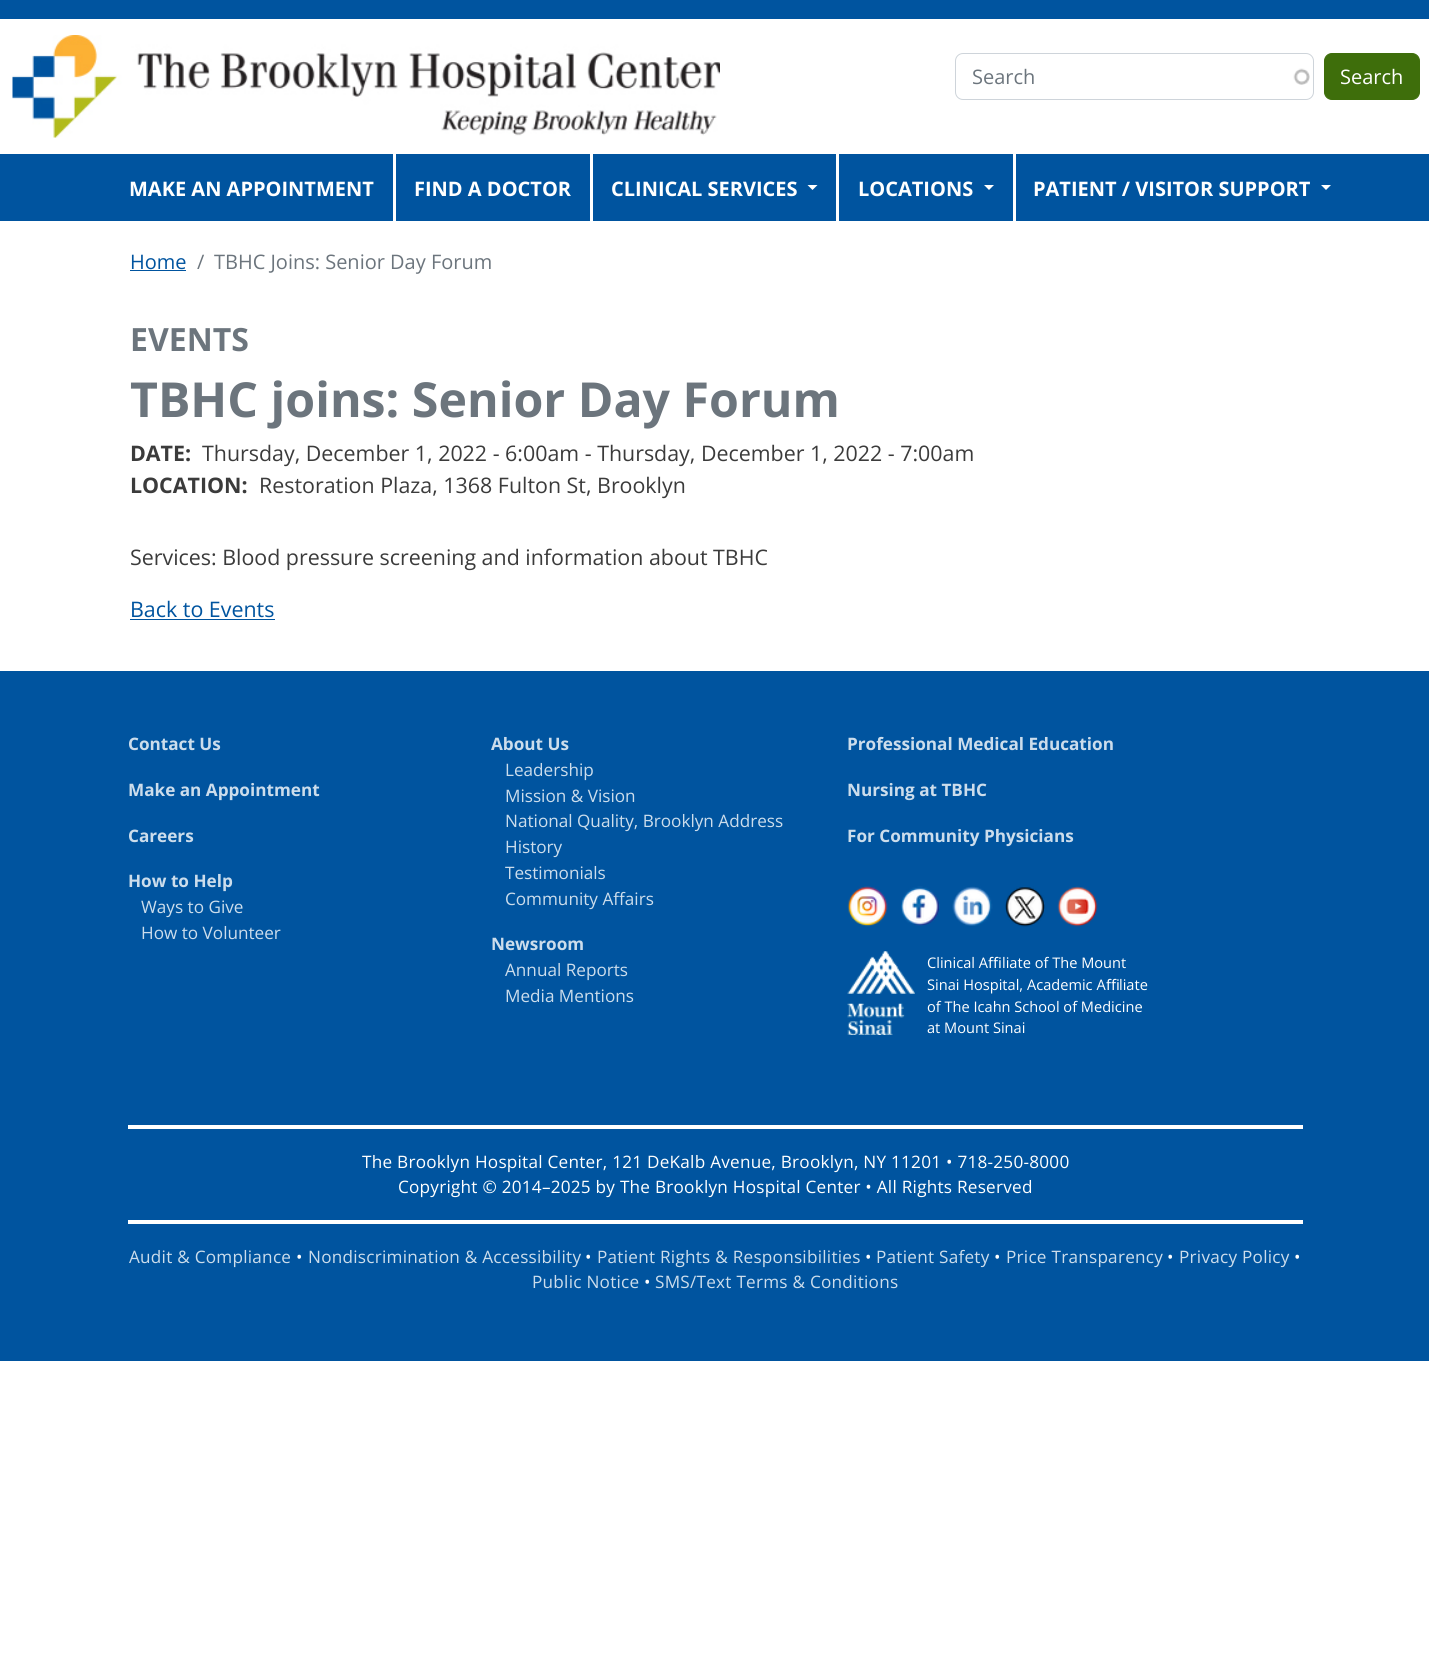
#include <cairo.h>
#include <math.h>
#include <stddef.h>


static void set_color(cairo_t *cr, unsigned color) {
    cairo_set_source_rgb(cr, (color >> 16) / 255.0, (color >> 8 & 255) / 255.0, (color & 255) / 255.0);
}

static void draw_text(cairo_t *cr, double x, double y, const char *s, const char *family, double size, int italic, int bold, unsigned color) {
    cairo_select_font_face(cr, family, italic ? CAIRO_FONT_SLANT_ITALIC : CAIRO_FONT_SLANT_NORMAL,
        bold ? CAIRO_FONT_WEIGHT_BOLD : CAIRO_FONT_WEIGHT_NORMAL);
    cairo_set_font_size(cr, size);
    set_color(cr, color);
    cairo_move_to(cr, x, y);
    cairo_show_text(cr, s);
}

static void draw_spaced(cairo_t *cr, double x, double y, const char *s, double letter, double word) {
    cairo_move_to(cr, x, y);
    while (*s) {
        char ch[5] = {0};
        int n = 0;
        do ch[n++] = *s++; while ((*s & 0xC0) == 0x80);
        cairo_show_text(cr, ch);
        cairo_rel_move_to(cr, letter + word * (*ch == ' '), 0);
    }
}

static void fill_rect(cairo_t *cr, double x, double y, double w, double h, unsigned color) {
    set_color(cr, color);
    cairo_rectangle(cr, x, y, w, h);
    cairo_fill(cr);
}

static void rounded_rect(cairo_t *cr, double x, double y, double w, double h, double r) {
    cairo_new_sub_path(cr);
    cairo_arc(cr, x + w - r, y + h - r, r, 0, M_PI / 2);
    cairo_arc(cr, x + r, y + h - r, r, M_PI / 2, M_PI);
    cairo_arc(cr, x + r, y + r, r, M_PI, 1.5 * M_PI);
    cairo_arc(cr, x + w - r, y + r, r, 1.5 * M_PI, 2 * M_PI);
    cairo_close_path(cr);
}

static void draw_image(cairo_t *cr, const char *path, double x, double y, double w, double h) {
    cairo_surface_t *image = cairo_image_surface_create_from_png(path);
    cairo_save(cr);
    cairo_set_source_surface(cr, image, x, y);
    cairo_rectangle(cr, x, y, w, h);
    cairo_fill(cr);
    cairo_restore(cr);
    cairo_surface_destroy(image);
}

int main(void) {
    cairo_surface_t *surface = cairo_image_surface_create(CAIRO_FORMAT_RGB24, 1429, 1655);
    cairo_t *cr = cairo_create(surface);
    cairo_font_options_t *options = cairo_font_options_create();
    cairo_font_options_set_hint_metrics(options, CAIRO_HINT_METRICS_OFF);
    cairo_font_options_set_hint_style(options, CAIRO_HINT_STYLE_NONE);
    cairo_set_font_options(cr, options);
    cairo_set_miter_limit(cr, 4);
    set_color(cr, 0xFFFFFF);
    cairo_paint(cr);
    fill_rect(cr, 0, 0, 1429, 19, 0x00549F);
    draw_image(cr, "assets/img1.png", 12, 35, 708, 103);
    draw_image(cr, "assets/img2.png", 1293, 68, 17, 17);
    rounded_rect(cr, 955.5, 53.5, 358, 46, 7.5);
    set_color(cr, 0xCED4DA);
    cairo_set_line_width(cr, 1);
    cairo_stroke(cr);
    draw_text(cr, 972, 84, "Search", "Open Sans", 20, 0, 0, 0x6C757D);
    set_color(cr, 0x3E6E0B);
    rounded_rect(cr, 1324.5, 53.5, 95, 46, 7.5);
    cairo_fill_preserve(cr);
    cairo_stroke(cr);
    draw_text(cr, 1340, 84, "Search", "Open Sans", 20, 0, 0, 0xFFFFFF);
    fill_rect(cr, 0, 154, 1429, 67, 0x00549F);
    fill_rect(cr, 393, 154, 3, 67, 0xFFFFFF);
    draw_text(cr, 129, 196, "MAKE AN APPOINTMENT", "Open Sans", 20, 0, 1, 0xFFFFFF);
    fill_rect(cr, 590, 154, 3, 67, 0xFFFFFF);
    draw_text(cr, 414, 196, "FIND A DOCTOR", "Open Sans", 20, 0, 1, 0xFFFFFF);
    fill_rect(cr, 836, 154, 3, 67, 0xFFFFFF);
    draw_text(cr, 611, 196, "CLINICAL SERVICES", "Open Sans", 20, 0, 1, 0xFFFFFF);
    cairo_new_path(cr);
    cairo_move_to(cr, 807.5, 185);
    cairo_line_to(cr, 817.5, 185);
    cairo_line_to(cr, 812.5, 190);
    cairo_close_path(cr);
    cairo_fill(cr);
    fill_rect(cr, 1013, 154, 3, 67, 0xFFFFFF);
    draw_text(cr, 858, 196, "LOCATIONS", "Open Sans", 20, 0, 1, 0xFFFFFF);
    cairo_new_path(cr);
    cairo_move_to(cr, 984, 185);
    cairo_line_to(cr, 994, 185);
    cairo_line_to(cr, 989, 190);
    cairo_close_path(cr);
    cairo_fill(cr);
    draw_text(cr, 1033, 196, "PATIENT / VISITOR SUPPORT", "Open Sans", 20, 0, 1, 0xFFFFFF);
    cairo_new_path(cr);
    cairo_move_to(cr, 1321, 185);
    cairo_line_to(cr, 1331, 185);
    cairo_line_to(cr, 1326, 190);
    cairo_close_path(cr);
    cairo_fill(cr);
    draw_text(cr, 130, 269, "Home", "Open Sans", 20, 0, 0, 0x00549F);
    fill_rect(cr, 130, 270, 56, 1, 0x00549F);
    draw_text(cr, 197, 269, "/", "Open Sans", 20, 0, 0, 0x6C757D);
    draw_text(cr, 214, 269, "TBHC Joins: Senior Day Forum", "Open Sans", 20, 0, 0, 0x6C757D);
    draw_text(cr, 130, 351, "EVENTS", "Open Sans", 32, 0, 1, 0x6C757D);
    draw_text(cr, 130, 417, "TBHC joins: Senior Day Forum", "Open Sans", 48.25, 0, 1, 0x6C757D);
    draw_text(cr, 130, 461, "DATE:", "Open Sans", 21.4, 0, 1, 0x3B3B3B);
    draw_text(cr, 202, 461, "Thursday, December 1, 2022 - 6:00am - Thursday, December 1, 2022 - 7:00am", "Open Sans", 21.4, 0, 0, 0x3B3B3B);
    draw_text(cr, 130, 493, "LOCATION:", "Open Sans", 21.4, 0, 1, 0x3B3B3B);
    draw_text(cr, 259, 493, "Restoration Plaza, 1368 Fulton St, Brooklyn", "Open Sans", 21.4, 0, 0, 0x3B3B3B);
    draw_text(cr, 130, 565, "Services: Blood pressure screening and information about TBHC", "Open Sans", 21.4, 0, 0, 0x3B3B3B);
    draw_text(cr, 130, 617, "Back to Events", "Open Sans", 21.4, 0, 0, 0x00549F);
    fill_rect(cr, 130, 619, 145, 1, 0x00549F);
    fill_rect(cr, 0, 671, 1429, 690, 0x00549F);
    draw_text(cr, 128, 750, "Contact Us", "Open Sans", 17.15, 0, 1, 0xCCDDEC);
    draw_text(cr, 128, 796, "Make an Appointment", "Open Sans", 17.15, 0, 1, 0xCCDDEC);
    draw_text(cr, 128, 842, "Careers", "Open Sans", 17.15, 0, 1, 0xCCDDEC);
    draw_text(cr, 128, 887, "How to Help", "Open Sans", 17.15, 0, 1, 0xCCDDEC);
    draw_text(cr, 141, 913, "Ways to Give", "Open Sans", 17.15, 0, 0, 0xCCDDEC);
    draw_text(cr, 141, 939, "How to Volunteer", "Open Sans", 17.15, 0, 0, 0xCCDDEC);
    draw_text(cr, 491, 750, "About Us", "Open Sans", 17.15, 0, 1, 0xCCDDEC);
    draw_text(cr, 505, 776, "Leadership", "Open Sans", 17.15, 0, 0, 0xCCDDEC);
    draw_text(cr, 505, 802, "Mission & Vision", "Open Sans", 17.15, 0, 0, 0xCCDDEC);
    draw_text(cr, 505, 827, "National Quality, Brooklyn Address", "Open Sans", 17.15, 0, 0, 0xCCDDEC);
    draw_text(cr, 505, 853, "History", "Open Sans", 17.15, 0, 0, 0xCCDDEC);
    draw_text(cr, 505, 879, "Testimonials", "Open Sans", 17.15, 0, 0, 0xCCDDEC);
    draw_text(cr, 505, 905, "Community Affairs", "Open Sans", 17.15, 0, 0, 0xCCDDEC);
    draw_text(cr, 491, 950, "Newsroom", "Open Sans", 17.15, 0, 1, 0xCCDDEC);
    draw_text(cr, 505, 976, "Annual Reports", "Open Sans", 17.15, 0, 0, 0xCCDDEC);
    draw_text(cr, 505, 1002, "Media Mentions", "Open Sans", 17.15, 0, 0, 0xCCDDEC);
    draw_text(cr, 847, 750, "Professional Medical Education", "Open Sans", 17.15, 0, 1, 0xCCDDEC);
    draw_text(cr, 847, 796, "Nursing at TBHC", "Open Sans", 17.15, 0, 1, 0xCCDDEC);
    draw_text(cr, 847, 842, "For Community Physicians", "Open Sans", 17.15, 0, 1, 0xCCDDEC);
    draw_image(cr, "assets/img3.png", 847, 886, 41, 41);
    draw_image(cr, "assets/img4.png", 901, 886, 39, 40);
    draw_image(cr, "assets/img5.png", 952, 886, 41, 40);
    draw_image(cr, "assets/img6.png", 1005, 886, 40, 41);
    draw_image(cr, "assets/img7.png", 1057, 886, 41, 41);
    draw_image(cr, "assets/img8.png", 847, 951, 68, 84);
    draw_text(cr, 927, 968, "Clinical A", "Open Sans", 14.6, 0, 0, 0xFFFFFF);
    draw_text(cr, 988, 968, "ﬃ", "Noto Sans", 14.6, 0, 0, 0xFFFFFF);
    draw_text(cr, 1002, 968, "liate of The Mount", "Open Sans", 14.6, 0, 0, 0xFFFFFF);
    draw_text(cr, 927, 990, "Sinai Hospital, Academic A", "Open Sans", 14.6, 0, 0, 0xFFFFFF);
    draw_text(cr, 1106, 990, "ﬃ", "Noto Sans", 14.6, 0, 0, 0xFFFFFF);
    draw_text(cr, 1119, 990, "liate", "Open Sans", 14.6, 0, 0, 0xFFFFFF);
    draw_text(cr, 927, 1012, "of The Icahn School of Medicine", "Open Sans", 14.6, 0, 0, 0xFFFFFF);
    draw_text(cr, 927, 1033, "at Mount Sinai", "Open Sans", 14.6, 0, 0, 0xFFFFFF);
    fill_rect(cr, 128, 1125, 1175, 4, 0xFFFFFF);
    cairo_set_font_size(cr, 17.15);
    draw_spaced(cr, 362, 1168, "The Brooklyn Hospital Center, 121 DeKalb Avenue, Brooklyn, NY 11201 • 718-250-8000", 0.25, 0);
    draw_spaced(cr, 398, 1193, "Copyright © 2014–2025 by The Brooklyn Hospital Center • All Rights Reserved", 0.25, 0);
    fill_rect(cr, 128, 1220, 1175, 4, 0xFFFFFF);
    set_color(cr, 0xCCDDEC);
    draw_spaced(cr, 129, 1263, "Audit & Compliance", 0.25, 0);
    set_color(cr, 0xFFFFFF);
    draw_spaced(cr, 296, 1263, "•", 0.25, 0);
    set_color(cr, 0xCCDDEC);
    draw_spaced(cr, 308, 1263, "Nondiscrimination & Accessibility", 0.25, 0);
    set_color(cr, 0xFFFFFF);
    draw_spaced(cr, 585, 1263, "•", 0.25, 0);
    set_color(cr, 0xCCDDEC);
    draw_spaced(cr, 597, 1263, "Patient Rights & Responsibilities", 0.25, 0);
    set_color(cr, 0xFFFFFF);
    draw_spaced(cr, 865, 1263, "•", 0.25, 0);
    set_color(cr, 0xCCDDEC);
    draw_spaced(cr, 876, 1263, "Patient Safety", 0.25, 0);
    set_color(cr, 0xFFFFFF);
    draw_spaced(cr, 994, 1263, "•", 0.25, 0);
    set_color(cr, 0xCCDDEC);
    draw_spaced(cr, 1006, 1263, "Price Transparency", 0.25, 0);
    set_color(cr, 0xFFFFFF);
    draw_spaced(cr, 1167, 1263, "•", 0.25, 0);
    set_color(cr, 0xCCDDEC);
    draw_spaced(cr, 1179, 1263, "Privacy Policy", 0.25, 0);
    set_color(cr, 0xFFFFFF);
    draw_spaced(cr, 1294, 1263, "•", 0.25, 0);
    set_color(cr, 0xCCDDEC);
    draw_spaced(cr, 532, 1288, "Public Notice", 0.25, 0);
    set_color(cr, 0xFFFFFF);
    draw_spaced(cr, 644, 1288, "•", 0.25, 0);
    set_color(cr, 0xCCDDEC);
    draw_spaced(cr, 655, 1288, "SMS/Text Terms & Conditions", 0.25, 0);
    cairo_surface_write_to_png(surface, "output.png");
    cairo_font_options_destroy(options);
    cairo_destroy(cr);
    cairo_surface_destroy(surface);
    return 0;
}
